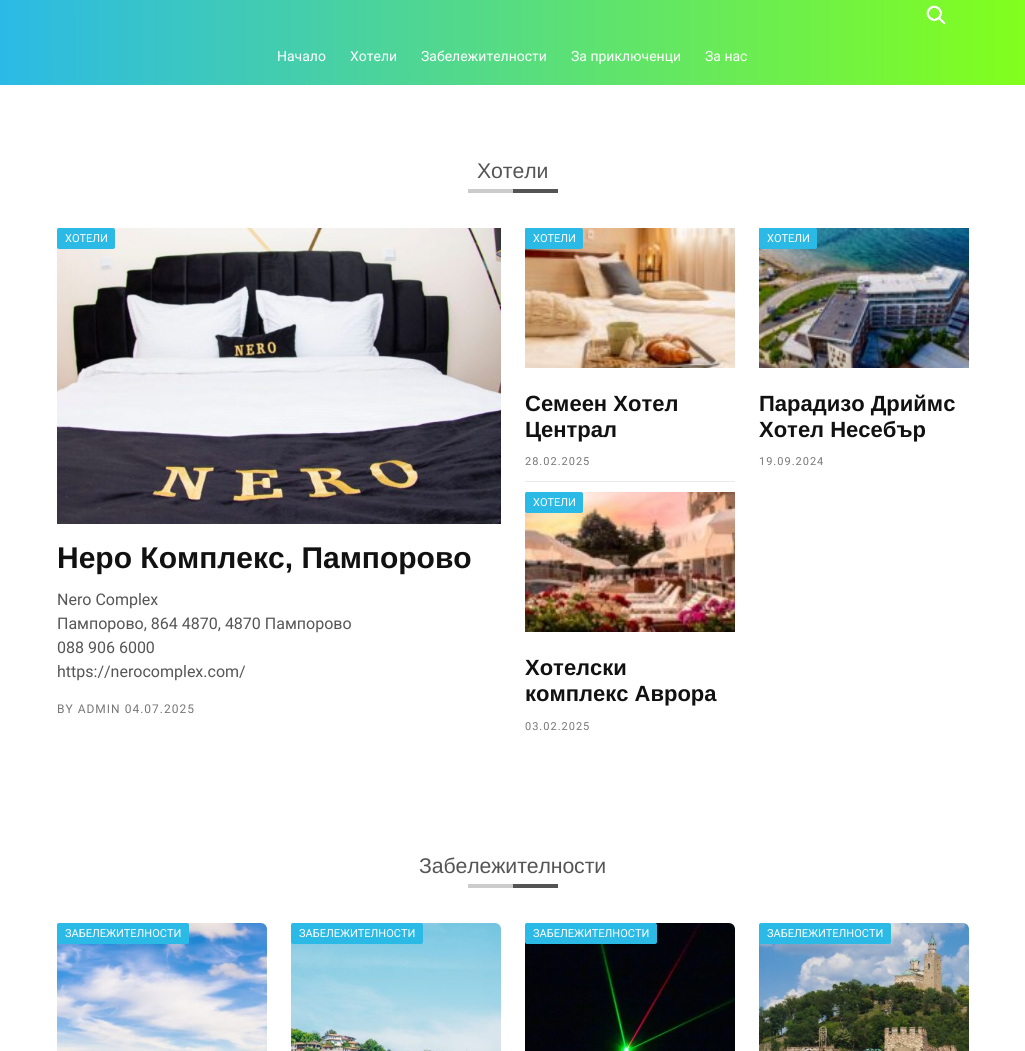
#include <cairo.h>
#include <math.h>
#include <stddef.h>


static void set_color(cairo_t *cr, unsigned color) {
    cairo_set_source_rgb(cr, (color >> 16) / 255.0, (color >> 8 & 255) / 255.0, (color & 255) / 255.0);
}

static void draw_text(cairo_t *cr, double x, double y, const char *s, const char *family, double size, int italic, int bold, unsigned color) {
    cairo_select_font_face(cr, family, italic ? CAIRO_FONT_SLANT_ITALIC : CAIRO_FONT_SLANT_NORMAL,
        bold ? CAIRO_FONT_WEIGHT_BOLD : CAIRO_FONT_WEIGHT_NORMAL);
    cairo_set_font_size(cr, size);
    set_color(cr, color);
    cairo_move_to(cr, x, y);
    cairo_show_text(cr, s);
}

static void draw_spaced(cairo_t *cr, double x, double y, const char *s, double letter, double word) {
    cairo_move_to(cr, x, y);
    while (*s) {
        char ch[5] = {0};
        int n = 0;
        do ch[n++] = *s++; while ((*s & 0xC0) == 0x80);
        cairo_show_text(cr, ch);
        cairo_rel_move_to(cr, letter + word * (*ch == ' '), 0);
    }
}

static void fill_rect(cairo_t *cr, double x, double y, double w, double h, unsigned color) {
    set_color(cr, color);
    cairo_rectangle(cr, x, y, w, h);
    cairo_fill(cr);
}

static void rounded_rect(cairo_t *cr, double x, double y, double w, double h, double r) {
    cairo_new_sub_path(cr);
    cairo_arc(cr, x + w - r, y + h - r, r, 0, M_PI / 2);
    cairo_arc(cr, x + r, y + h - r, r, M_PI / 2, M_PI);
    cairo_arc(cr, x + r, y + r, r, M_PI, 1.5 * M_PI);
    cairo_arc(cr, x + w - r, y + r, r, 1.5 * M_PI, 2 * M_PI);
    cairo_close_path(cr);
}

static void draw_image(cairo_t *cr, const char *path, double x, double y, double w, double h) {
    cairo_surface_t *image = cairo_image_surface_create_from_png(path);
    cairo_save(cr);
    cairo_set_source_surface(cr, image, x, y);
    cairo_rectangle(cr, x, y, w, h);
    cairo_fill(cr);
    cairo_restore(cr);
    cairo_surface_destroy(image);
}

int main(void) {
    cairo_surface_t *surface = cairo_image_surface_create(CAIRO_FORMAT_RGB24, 1025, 1051);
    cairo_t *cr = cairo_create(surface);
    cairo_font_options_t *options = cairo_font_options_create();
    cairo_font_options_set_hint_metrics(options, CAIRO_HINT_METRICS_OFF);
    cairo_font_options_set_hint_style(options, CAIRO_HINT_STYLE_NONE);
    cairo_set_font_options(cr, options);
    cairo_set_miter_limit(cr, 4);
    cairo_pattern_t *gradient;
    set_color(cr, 0xFFFFFF);
    cairo_paint(cr);
    gradient = cairo_pattern_create_linear(0, 43, 1025, 42);
    cairo_pattern_add_color_stop_rgba(gradient, 0, 0.169, 0.729, 0.902, 1);
    cairo_pattern_add_color_stop_rgba(gradient, 1, 0.51, 1, 0.11, 1);
    cairo_set_source(cr, gradient);
    cairo_pattern_destroy(gradient);
    cairo_rectangle(cr, 0, 0, 1025, 85);
    cairo_fill(cr);
    draw_image(cr, "assets/img1.png", 926, 5, 20, 20);
    draw_text(cr, 277, 61, "Начало", "Roboto", 14, 0, 0, 0xFFFFFF);
    draw_text(cr, 350, 61, "Хотели", "Roboto", 14, 0, 0, 0xFFFFFF);
    draw_text(cr, 421, 61, "Забележителности", "Roboto", 14, 0, 0, 0xFFFFFF);
    draw_text(cr, 571, 61, "За приключенци", "Roboto", 14, 0, 0, 0xFFFFFF);
    draw_text(cr, 705, 61, "За нас", "Roboto", 14, 0, 0, 0xFFFFFF);
    cairo_select_font_face(cr, "Liberation Sans", CAIRO_FONT_SLANT_NORMAL, CAIRO_FONT_WEIGHT_NORMAL);
    cairo_set_font_size(cr, 21.25);
    set_color(cr, 0x555555);
    draw_spaced(cr, 477, 178, "Хотели", -0.1, 0);
    fill_rect(cr, 468, 189, 45, 4, 0xCCCCCC);
    fill_rect(cr, 513, 189, 45, 4, 0x545454);
    draw_image(cr, "assets/img2.png", 57, 228, 444, 296);
    set_color(cr, 0x2BBAE6);
    rounded_rect(cr, 57, 228, 58, 21, 2);
    cairo_fill(cr);
    draw_text(cr, 65, 242, "ХОТЕЛИ", "Roboto", 11, 0, 0, 0xFFFFFF);
    draw_text(cr, 57, 568, "Неро Комплекс, Пампорово", "Liberation Sans", 30, 0, 1, 0x111111);
    draw_text(cr, 57, 605, "Nero Complex", "Roboto", 16, 0, 0, 0x555555);
    draw_text(cr, 57, 629, "Пампорово, 864 4870, 4870 Пампорово", "Roboto", 16, 0, 0, 0x555555);
    draw_text(cr, 57, 653, "088 906 6000", "Roboto", 16, 0, 0, 0x555555);
    draw_text(cr, 57, 677, "https://nerocomplex.com/", "Roboto", 16, 0, 0, 0x555555);
    cairo_set_font_size(cr, 12);
    set_color(cr, 0x777777);
    draw_spaced(cr, 57, 713, "BY ADMIN 04.07.2025", 1, 0);
    fill_rect(cr, 525, 481, 210, 1, 0xEAEAEA);
    draw_image(cr, "assets/img3.png", 525, 228, 210, 140);
    set_color(cr, 0x2BBAE6);
    rounded_rect(cr, 525, 228, 58, 21, 2);
    cairo_fill(cr);
    draw_text(cr, 533, 242, "ХОТЕЛИ", "Roboto", 11, 0, 0, 0xFFFFFF);
    draw_text(cr, 525, 411, "Семеен Хотел", "Liberation Sans", 22, 0, 1, 0x111111);
    draw_text(cr, 525, 437, "Централ", "Liberation Sans", 22, 0, 1, 0x111111);
    cairo_select_font_face(cr, "Roboto", CAIRO_FONT_SLANT_NORMAL, CAIRO_FONT_WEIGHT_NORMAL);
    cairo_set_font_size(cr, 11);
    set_color(cr, 0x777777);
    draw_spaced(cr, 525, 465, "28.02.2025", 1, 0);
    draw_image(cr, "assets/img4.png", 525, 492, 210, 140);
    set_color(cr, 0x2BBAE6);
    rounded_rect(cr, 525, 492, 58, 21, 2);
    cairo_fill(cr);
    draw_text(cr, 533, 506, "ХОТЕЛИ", "Roboto", 11, 0, 0, 0xFFFFFF);
    draw_text(cr, 525, 675, "Хотелски", "Liberation Sans", 22, 0, 1, 0x111111);
    draw_text(cr, 525, 701, "комплекс Аврора", "Liberation Sans", 22, 0, 1, 0x111111);
    cairo_select_font_face(cr, "Roboto", CAIRO_FONT_SLANT_NORMAL, CAIRO_FONT_WEIGHT_NORMAL);
    cairo_set_font_size(cr, 11);
    set_color(cr, 0x777777);
    draw_spaced(cr, 525, 730, "03.02.2025", 1, 0);
    draw_image(cr, "assets/img5.png", 759, 228, 210, 140);
    set_color(cr, 0x2BBAE6);
    rounded_rect(cr, 759, 228, 58, 21, 2);
    cairo_fill(cr);
    draw_text(cr, 767, 242, "ХОТЕЛИ", "Roboto", 11, 0, 0, 0xFFFFFF);
    draw_text(cr, 759, 411, "Парадизо Дриймс", "Liberation Sans", 22, 0, 1, 0x111111);
    draw_text(cr, 759, 437, "Хотел Несебър", "Liberation Sans", 22, 0, 1, 0x111111);
    cairo_select_font_face(cr, "Roboto", CAIRO_FONT_SLANT_NORMAL, CAIRO_FONT_WEIGHT_NORMAL);
    cairo_set_font_size(cr, 11);
    set_color(cr, 0x777777);
    draw_spaced(cr, 759, 465, "19.09.2024", 1, 0);
    cairo_select_font_face(cr, "Liberation Sans", CAIRO_FONT_SLANT_NORMAL, CAIRO_FONT_WEIGHT_NORMAL);
    cairo_set_font_size(cr, 21.25);
    set_color(cr, 0x555555);
    draw_spaced(cr, 419, 873, "Забележителности", -0.1, 0);
    fill_rect(cr, 468, 884, 45, 4, 0xCCCCCC);
    fill_rect(cr, 513, 884, 45, 4, 0x545454);
    draw_image(cr, "assets/img6.png", 57, 923, 210, 128);
    set_color(cr, 0x2BBAE6);
    rounded_rect(cr, 57, 923, 132, 21, 2);
    cairo_fill(cr);
    draw_text(cr, 65, 937, "ЗАБЕЛЕЖИТЕЛНОСТИ", "Roboto", 11, 0, 0, 0xFFFFFF);
    draw_image(cr, "assets/img7.png", 291, 923, 210, 128);
    set_color(cr, 0x2BBAE6);
    rounded_rect(cr, 291, 923, 132, 21, 2);
    cairo_fill(cr);
    draw_text(cr, 299, 937, "ЗАБЕЛЕЖИТЕЛНОСТИ", "Roboto", 11, 0, 0, 0xFFFFFF);
    draw_image(cr, "assets/img8.png", 525, 923, 210, 128);
    set_color(cr, 0x2BBAE6);
    rounded_rect(cr, 525, 923, 132, 21, 2);
    cairo_fill(cr);
    draw_text(cr, 533, 937, "ЗАБЕЛЕЖИТЕЛНОСТИ", "Roboto", 11, 0, 0, 0xFFFFFF);
    draw_image(cr, "assets/img9.png", 759, 923, 210, 128);
    set_color(cr, 0x2BBAE6);
    rounded_rect(cr, 759, 923, 132, 21, 2);
    cairo_fill(cr);
    draw_text(cr, 767, 937, "ЗАБЕЛЕЖИТЕЛНОСТИ", "Roboto", 11, 0, 0, 0xFFFFFF);
    cairo_surface_write_to_png(surface, "output.png");
    cairo_font_options_destroy(options);
    cairo_destroy(cr);
    cairo_surface_destroy(surface);
    return 0;
}
